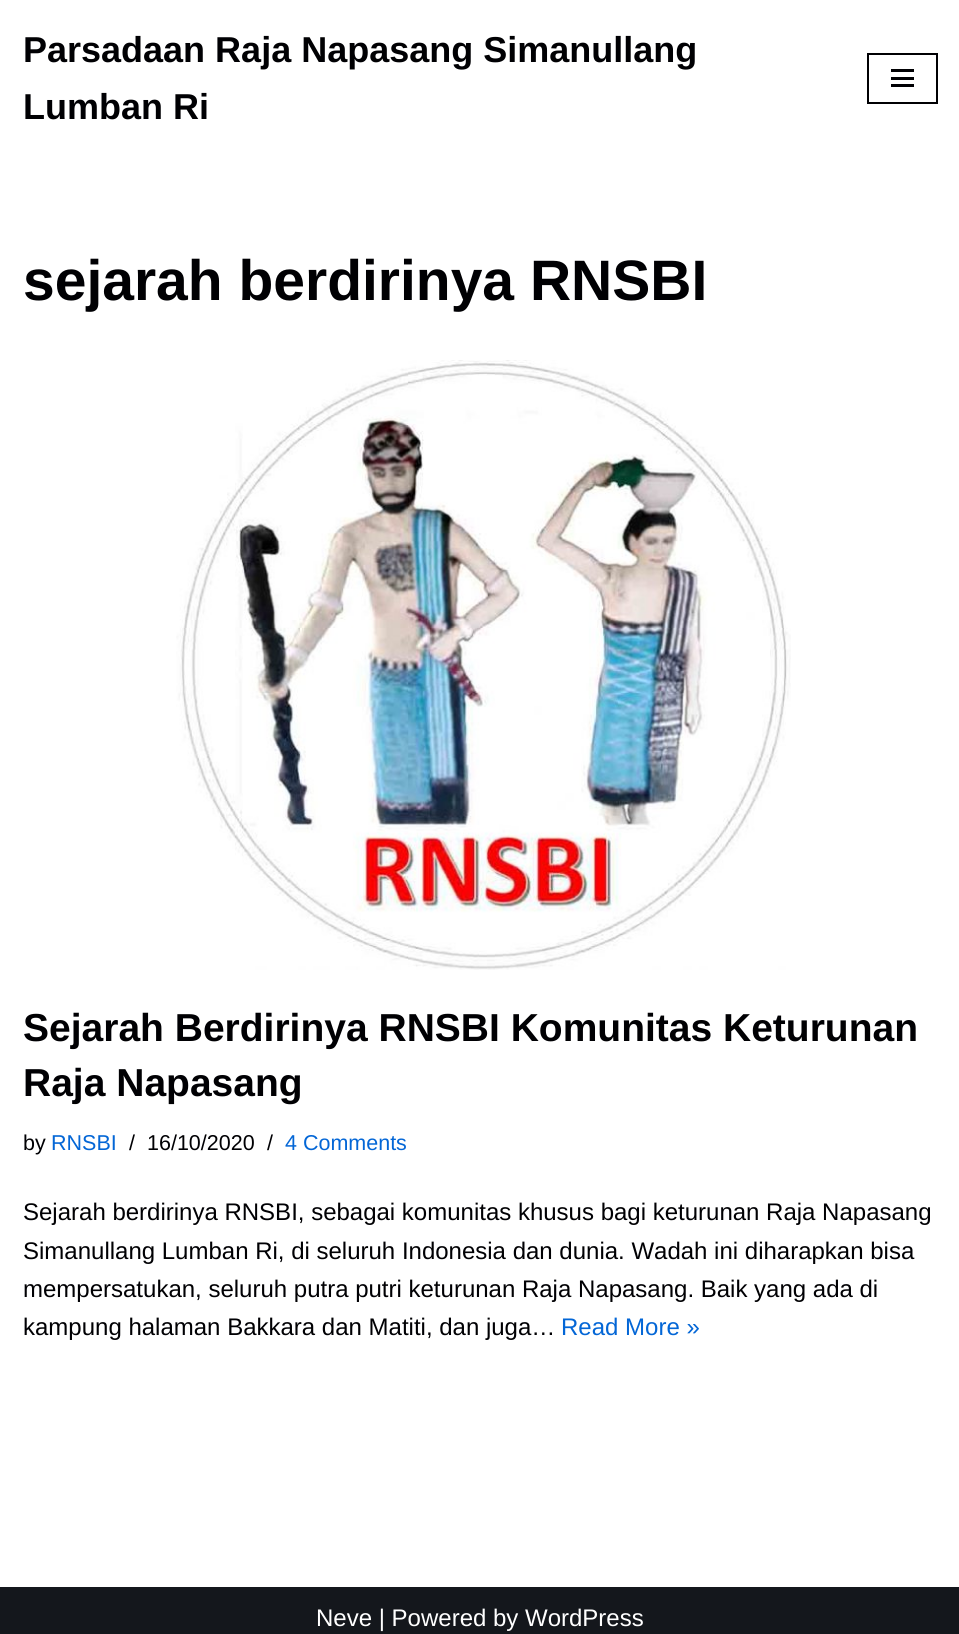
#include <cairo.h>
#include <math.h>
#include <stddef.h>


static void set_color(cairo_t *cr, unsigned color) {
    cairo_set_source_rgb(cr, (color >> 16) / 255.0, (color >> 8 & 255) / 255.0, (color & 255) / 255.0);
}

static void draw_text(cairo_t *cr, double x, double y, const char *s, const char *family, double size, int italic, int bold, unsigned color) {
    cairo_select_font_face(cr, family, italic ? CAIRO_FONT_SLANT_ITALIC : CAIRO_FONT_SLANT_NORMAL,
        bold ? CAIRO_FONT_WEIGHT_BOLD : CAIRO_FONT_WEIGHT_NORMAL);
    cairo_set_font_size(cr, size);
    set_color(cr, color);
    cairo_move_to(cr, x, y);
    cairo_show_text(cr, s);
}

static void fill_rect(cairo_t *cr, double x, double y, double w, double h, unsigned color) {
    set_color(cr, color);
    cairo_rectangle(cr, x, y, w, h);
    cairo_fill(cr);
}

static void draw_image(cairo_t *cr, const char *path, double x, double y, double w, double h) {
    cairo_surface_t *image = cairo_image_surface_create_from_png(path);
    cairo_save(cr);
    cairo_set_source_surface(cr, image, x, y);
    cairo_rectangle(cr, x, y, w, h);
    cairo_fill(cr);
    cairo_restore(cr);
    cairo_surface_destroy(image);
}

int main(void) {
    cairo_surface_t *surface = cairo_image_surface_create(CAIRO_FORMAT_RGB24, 959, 1634);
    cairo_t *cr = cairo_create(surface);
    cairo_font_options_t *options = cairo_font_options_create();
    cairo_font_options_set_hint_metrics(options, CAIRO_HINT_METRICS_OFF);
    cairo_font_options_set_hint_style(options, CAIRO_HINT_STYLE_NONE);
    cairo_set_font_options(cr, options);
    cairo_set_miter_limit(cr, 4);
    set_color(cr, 0xFFFFFF);
    cairo_paint(cr);
    draw_text(cr, 23, 62, "Parsadaan Raja Napasang Simanullang", "Liberation Sans", 36, 0, 1, 0x000003);
    draw_text(cr, 23, 119, "Lumban Ri", "Liberation Sans", 36, 0, 1, 0x000003);
    cairo_rectangle(cr, 868, 54, 69, 49);
    cairo_stroke(cr);
    fill_rect(cr, 891, 69, 23, 3, 0x000003);
    fill_rect(cr, 891, 77, 23, 3, 0x000003);
    fill_rect(cr, 891, 84, 23, 3, 0x000003);
    draw_text(cr, 23, 300, "sejarah berdirinya RNSBI", "Liberation Sans", 57, 0, 1, 0x000003);
    draw_image(cr, "assets/img1.png", 176, 360, 615, 610);
    draw_text(cr, 23, 1041, "Sejarah Berdirinya RNSBI Komunitas Keturunan", "Liberation Sans", 39, 0, 1, 0x000003);
    draw_text(cr, 23, 1096, "Raja Napasang", "Liberation Sans", 39, 0, 1, 0x000003);
    draw_text(cr, 23, 1150, "by", "Liberation Sans", 21.5, 0, 0, 0x000003);
    draw_text(cr, 51, 1150, "RNSBI", "Liberation Sans", 21.5, 0, 0, 0x0366D6);
    draw_text(cr, 129, 1150, "/", "Liberation Sans", 21.5, 0, 0, 0x000003);
    draw_text(cr, 147, 1150, "16/10/2020", "Liberation Sans", 21.5, 0, 0, 0x000003);
    draw_text(cr, 267, 1150, "/", "Liberation Sans", 21.5, 0, 0, 0x000003);
    draw_text(cr, 285, 1150, "4 Comments", "Liberation Sans", 21.5, 0, 0, 0x0366D6);
    draw_text(cr, 23, 1220, "Sejarah berdirinya RNSBI, sebagai komunitas khusus bagi keturunan Raja Napasang", "Liberation Sans", 24, 0, 0, 0x000003);
    draw_text(cr, 23, 1259, "Simanullang Lumban Ri, di seluruh Indonesia dan dunia. Wadah ini diharapkan bisa", "Liberation Sans", 24, 0, 0, 0x000003);
    draw_text(cr, 23, 1297, "mempersatukan, seluruh putra putri keturunan Raja Napasang. Baik yang ada di", "Liberation Sans", 24, 0, 0, 0x000003);
    draw_text(cr, 23, 1335, "kampung halaman Bakkara dan Matiti, dan juga…", "Liberation Sans", 24, 0, 0, 0x000003);
    draw_text(cr, 561, 1335, "Read More »", "Liberation Sans", 24, 0, 0, 0x0366D6);
    fill_rect(cr, 0, 1587, 959, 47, 0x14171C);
    draw_text(cr, 316, 1626, "Neve | Powered by WordPress", "Liberation Sans", 24, 0, 0, 0xFFFFFF);
    cairo_surface_write_to_png(surface, "output.png");
    cairo_font_options_destroy(options);
    cairo_destroy(cr);
    cairo_surface_destroy(surface);
    return 0;
}
